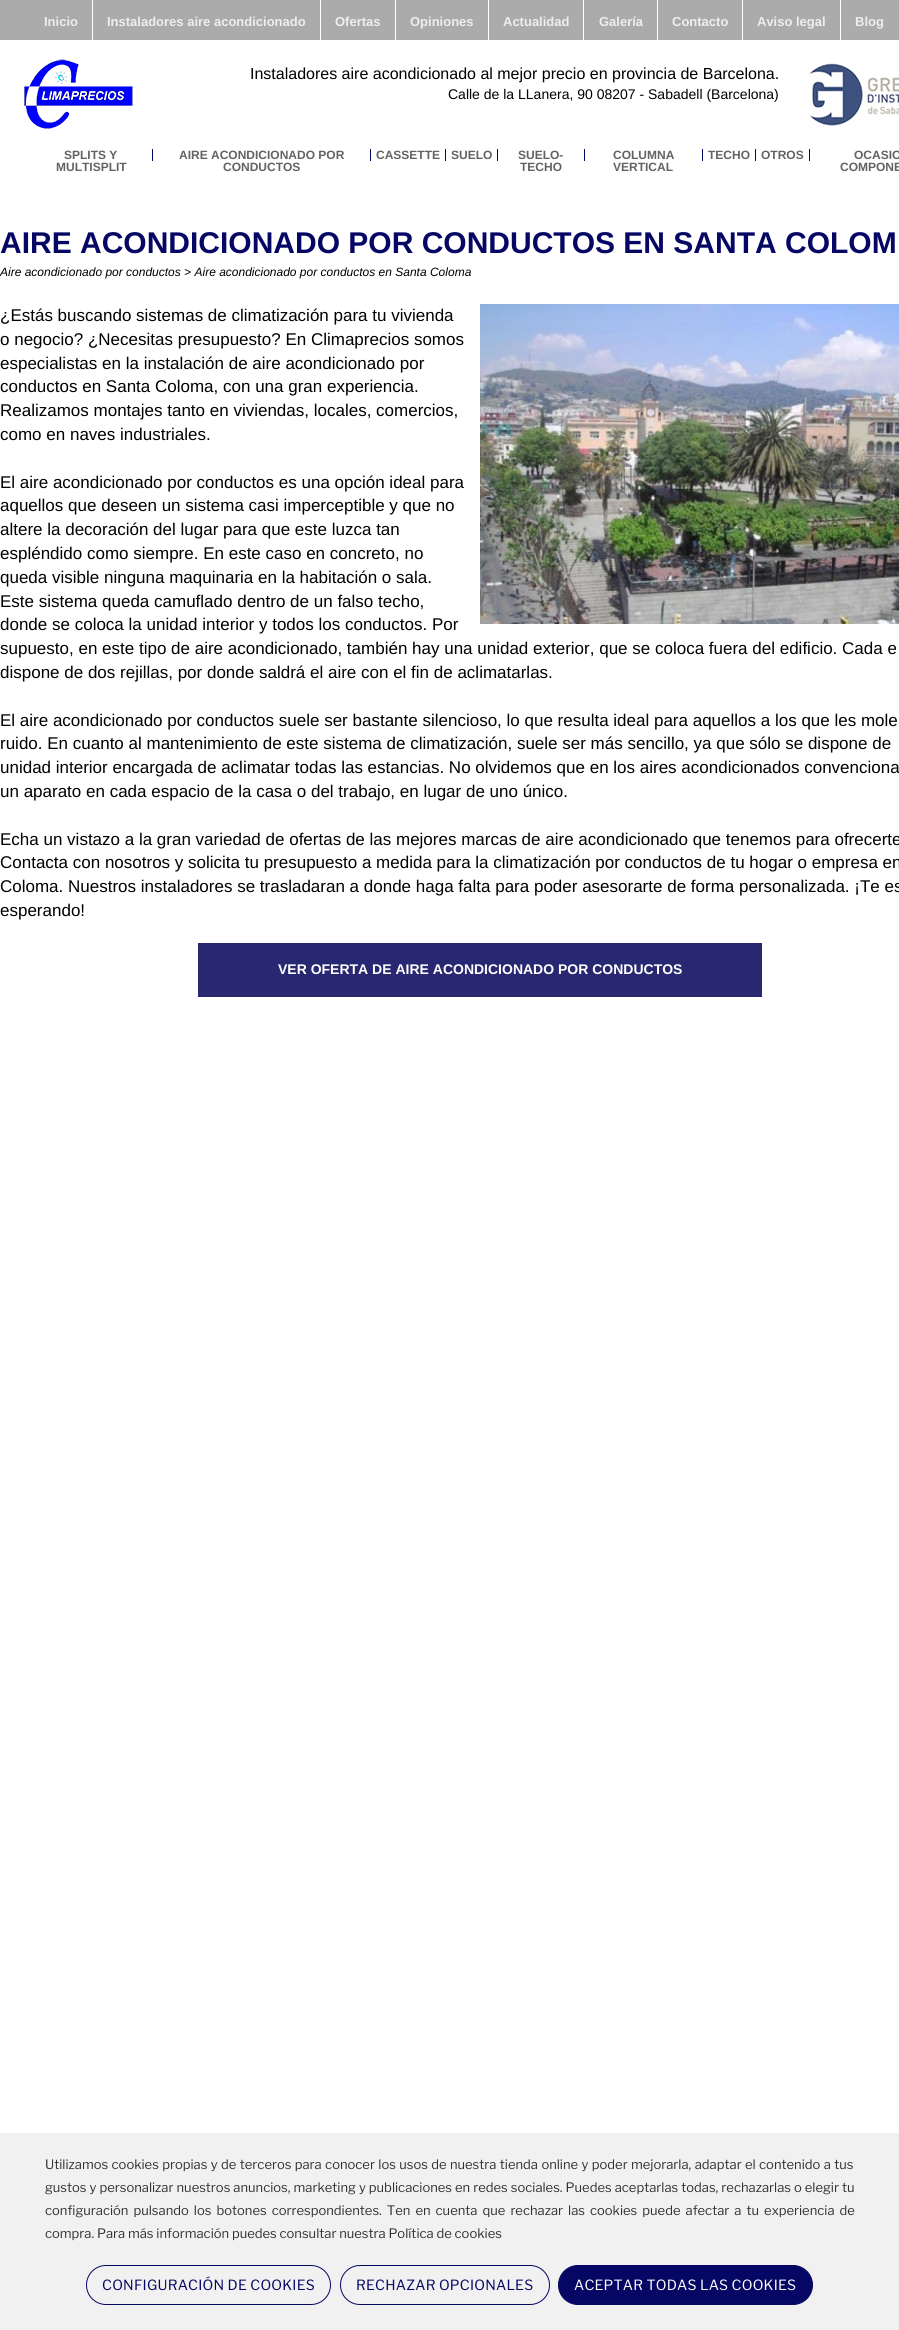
#include <cairo.h>
#include <math.h>
#include <stddef.h>


static void set_color(cairo_t *cr, unsigned color) {
    cairo_set_source_rgb(cr, (color >> 16) / 255.0, (color >> 8 & 255) / 255.0, (color & 255) / 255.0);
}

static void draw_text(cairo_t *cr, double x, double y, const char *s, const char *family, double size, int italic, int bold, unsigned color) {
    cairo_select_font_face(cr, family, italic ? CAIRO_FONT_SLANT_ITALIC : CAIRO_FONT_SLANT_NORMAL,
        bold ? CAIRO_FONT_WEIGHT_BOLD : CAIRO_FONT_WEIGHT_NORMAL);
    cairo_set_font_size(cr, size);
    set_color(cr, color);
    cairo_move_to(cr, x, y);
    cairo_show_text(cr, s);
}

static void draw_spaced(cairo_t *cr, double x, double y, const char *s, double letter, double word) {
    cairo_move_to(cr, x, y);
    while (*s) {
        char ch[5] = {0};
        int n = 0;
        do ch[n++] = *s++; while ((*s & 0xC0) == 0x80);
        cairo_show_text(cr, ch);
        cairo_rel_move_to(cr, letter + word * (*ch == ' '), 0);
    }
}

static void fill_rect(cairo_t *cr, double x, double y, double w, double h, unsigned color) {
    set_color(cr, color);
    cairo_rectangle(cr, x, y, w, h);
    cairo_fill(cr);
}

static void rounded_rect(cairo_t *cr, double x, double y, double w, double h, double r) {
    cairo_new_sub_path(cr);
    cairo_arc(cr, x + w - r, y + h - r, r, 0, M_PI / 2);
    cairo_arc(cr, x + r, y + h - r, r, M_PI / 2, M_PI);
    cairo_arc(cr, x + r, y + r, r, M_PI, 1.5 * M_PI);
    cairo_arc(cr, x + w - r, y + r, r, 1.5 * M_PI, 2 * M_PI);
    cairo_close_path(cr);
}

static void draw_image(cairo_t *cr, const char *path, double x, double y, double w, double h) {
    cairo_surface_t *image = cairo_image_surface_create_from_png(path);
    cairo_save(cr);
    cairo_set_source_surface(cr, image, x, y);
    cairo_rectangle(cr, x, y, w, h);
    cairo_fill(cr);
    cairo_restore(cr);
    cairo_surface_destroy(image);
}

int main(void) {
    cairo_surface_t *surface = cairo_image_surface_create(CAIRO_FORMAT_RGB24, 899, 2330);
    cairo_t *cr = cairo_create(surface);
    cairo_font_options_t *options = cairo_font_options_create();
    cairo_font_options_set_hint_metrics(options, CAIRO_HINT_METRICS_OFF);
    cairo_font_options_set_hint_style(options, CAIRO_HINT_STYLE_NONE);
    cairo_set_font_options(cr, options);
    cairo_set_miter_limit(cr, 4);
    set_color(cr, 0xFFFFFF);
    cairo_paint(cr);
    fill_rect(cr, 0, 0, 899, 40, 0xABABAB);
    fill_rect(cr, 92, 0, 1, 40, 0xFFFFFF);
    draw_text(cr, 44, 26, "Inicio", "Liberation Sans", 13, 0, 1, 0xEEEEEE);
    fill_rect(cr, 320, 0, 1, 40, 0xFFFFFF);
    draw_text(cr, 107, 26, "Instaladores aire acondicionado", "Liberation Sans", 13, 0, 1, 0xEEEEEE);
    fill_rect(cr, 395, 0, 1, 40, 0xFFFFFF);
    draw_text(cr, 335, 26, "Ofertas", "Liberation Sans", 13, 0, 1, 0xEEEEEE);
    fill_rect(cr, 488, 0, 1, 40, 0xFFFFFF);
    draw_text(cr, 410, 26, "Opiniones", "Liberation Sans", 13, 0, 1, 0xEEEEEE);
    fill_rect(cr, 583, 0, 1, 40, 0xFFFFFF);
    draw_text(cr, 503, 26, "Actualidad", "Liberation Sans", 13, 0, 1, 0xEEEEEE);
    fill_rect(cr, 657, 0, 1, 40, 0xFFFFFF);
    draw_text(cr, 599, 26, "Galería", "Liberation Sans", 13, 0, 1, 0xEEEEEE);
    fill_rect(cr, 742, 0, 1, 40, 0xFFFFFF);
    draw_text(cr, 672, 26, "Contacto", "Liberation Sans", 13, 0, 1, 0xEEEEEE);
    fill_rect(cr, 840, 0, 1, 40, 0xFFFFFF);
    draw_text(cr, 757, 26, "Aviso legal", "Liberation Sans", 13, 0, 1, 0xEEEEEE);
    draw_text(cr, 855, 26, "Blog", "Liberation Sans", 13, 0, 1, 0xEEEEEE);
    draw_image(cr, "assets/img1.png", 24, 59, 109, 70);
    draw_text(cr, 250, 79, "Instaladores aire acondicionado al mejor precio en provincia de Barcelona.", "Liberation Sans", 16, 0, 0, 0x000000);
    draw_image(cr, "assets/img2.png", 799, 63, 100, 63);
    draw_text(cr, 448, 99, "Calle de la LLanera, 90 08207 - Sabadell (Barcelona)", "Liberation Sans", 14, 0, 0, 0x000000);
    fill_rect(cr, 152, 149, 1, 12, 0x060764);
    draw_text(cr, 64, 159, "SPLITS Y", "Liberation Sans", 12, 0, 1, 0x636363);
    draw_text(cr, 56, 171, "MULTISPLIT", "Liberation Sans", 12, 0, 1, 0x636363);
    fill_rect(cr, 370, 149, 1, 12, 0x060764);
    draw_text(cr, 179, 159, "AIRE ACONDICIONADO POR", "Liberation Sans", 12, 0, 1, 0x636363);
    draw_text(cr, 223, 171, "CONDUCTOS", "Liberation Sans", 12, 0, 1, 0x636363);
    fill_rect(cr, 445, 149, 1, 12, 0x060764);
    draw_text(cr, 376, 159, "CASSETTE", "Liberation Sans", 12, 0, 1, 0x636363);
    fill_rect(cr, 497, 149, 1, 12, 0x060764);
    draw_text(cr, 451, 159, "SUELO", "Liberation Sans", 12, 0, 1, 0x636363);
    fill_rect(cr, 584, 149, 1, 12, 0x060764);
    draw_text(cr, 518, 159, "SUELO-", "Liberation Sans", 12, 0, 1, 0x636363);
    draw_text(cr, 520, 171, "TECHO", "Liberation Sans", 12, 0, 1, 0x636363);
    fill_rect(cr, 702, 149, 1, 12, 0x060764);
    draw_text(cr, 613, 159, "COLUMNA", "Liberation Sans", 12, 0, 1, 0x636363);
    draw_text(cr, 613, 171, "VERTICAL", "Liberation Sans", 12, 0, 1, 0x636363);
    fill_rect(cr, 755, 149, 1, 12, 0x060764);
    draw_text(cr, 708, 159, "TECHO", "Liberation Sans", 12, 0, 1, 0x636363);
    fill_rect(cr, 809, 149, 1, 12, 0x060764);
    draw_text(cr, 761, 159, "OTROS", "Liberation Sans", 12, 0, 1, 0x636363);
    draw_text(cr, 854, 159, "OCASIO", "Liberation Sans", 12, 0, 1, 0x636363);
    draw_text(cr, 840, 171, "COMPONE", "Liberation Sans", 12, 0, 1, 0x636363);
    draw_text(cr, 0, 253, "AIRE ACONDICIONADO POR CONDUCTOS EN SANTA COLOM", "Liberation Sans", 30, 0, 1, 0x060764);
    draw_text(cr, 0, 276, "Aire acondicionado por conductos > Aire acondicionado por conductos en Santa Coloma", "Liberation Sans", 12, 1, 0, 0x000000);
    draw_text(cr, 0, 321, "¿Estás buscando sistemas de climatización para tu vivienda", "Liberation Sans", 17, 0, 0, 0x000000);
    draw_text(cr, 0, 345, "o negocio? ¿Necesitas presupuesto? En Climaprecios somos", "Liberation Sans", 17, 0, 0, 0x000000);
    draw_text(cr, 0, 369, "especialistas en la instalación de aire acondicionado por", "Liberation Sans", 17, 0, 0, 0x000000);
    draw_text(cr, 0, 392, "conductos en Santa Coloma, con una gran experiencia.", "Liberation Sans", 17, 0, 0, 0x000000);
    draw_text(cr, 0, 416, "Realizamos montajes tanto en viviendas, locales, comercios,", "Liberation Sans", 17, 0, 0, 0x000000);
    draw_text(cr, 0, 440, "como en naves industriales.", "Liberation Sans", 17, 0, 0, 0x000000);
    draw_image(cr, "assets/img3.png", 480, 304, 419, 320);
    draw_text(cr, 0, 488, "El aire acondicionado por conductos es una opción ideal para", "Liberation Sans", 17, 0, 0, 0x000000);
    draw_text(cr, 0, 511, "aquellos que deseen un sistema casi imperceptible y que no", "Liberation Sans", 17, 0, 0, 0x000000);
    draw_text(cr, 0, 535, "altere la decoración del lugar para que este luzca tan", "Liberation Sans", 17, 0, 0, 0x000000);
    draw_text(cr, 0, 559, "espléndido como siempre. En este caso en concreto, no", "Liberation Sans", 17, 0, 0, 0x000000);
    draw_text(cr, 0, 583, "queda visible ninguna maquinaria en la habitación o sala.", "Liberation Sans", 17, 0, 0, 0x000000);
    draw_text(cr, 0, 607, "Este sistema queda camuflado dentro de un falso techo,", "Liberation Sans", 17, 0, 0, 0x000000);
    draw_text(cr, 0, 630, "donde se coloca la unidad interior y todos los conductos. Por", "Liberation Sans", 17, 0, 0, 0x000000);
    draw_text(cr, 0, 654, "supuesto, en este tipo de aire acondicionado, también hay una unidad exterior, que se coloca fuera del edificio. Cada e", "Liberation Sans", 17, 0, 0, 0x000000);
    draw_text(cr, 0, 678, "dispone de dos rejillas, por donde saldrá el aire con el fin de aclimatarlas.", "Liberation Sans", 17, 0, 0, 0x000000);
    draw_text(cr, 0, 726, "El aire acondicionado por conductos suele ser bastante silencioso, lo que resulta ideal para aquellos a los que les mole", "Liberation Sans", 17, 0, 0, 0x000000);
    draw_text(cr, 0, 749, "ruido. En cuanto al mantenimiento de este sistema de climatización, suele ser más sencillo, ya que sólo se dispone de", "Liberation Sans", 17, 0, 0, 0x000000);
    draw_text(cr, 0, 773, "unidad interior encargada de aclimatar todas las estancias. No olvidemos que en los aires acondicionados convenciona", "Liberation Sans", 17, 0, 0, 0x000000);
    draw_text(cr, 0, 797, "un aparato en cada espacio de la casa o del trabajo, en lugar de uno único.", "Liberation Sans", 17, 0, 0, 0x000000);
    draw_text(cr, 0, 845, "Echa un vistazo a la gran variedad de ofertas de las mejores marcas de aire acondicionado que tenemos para ofrecerte", "Liberation Sans", 17, 0, 0, 0x000000);
    draw_text(cr, 0, 868, "Contacta con nosotros y solicita tu presupuesto a medida para la climatización por conductos de tu hogar o empresa en", "Liberation Sans", 17, 0, 0, 0x000000);
    draw_text(cr, 0, 892, "Coloma. Nuestros instaladores se trasladaran a donde haga falta para poder asesorarte de forma personalizada. ¡Te es", "Liberation Sans", 17, 0, 0, 0x000000);
    draw_text(cr, 0, 916, "esperando!", "Liberation Sans", 17, 0, 0, 0x000000);
    fill_rect(cr, 198, 943, 564, 54, 0x282872);
    draw_text(cr, 278, 974, "VER OFERTA DE AIRE ACONDICIONADO POR CONDUCTOS", "Liberation Sans", 14, 0, 1, 0xFFFFFF);
    fill_rect(cr, 0, 2133, 899, 197, 0xF1F1F1);
    cairo_select_font_face(cr, "Libre Franklin", CAIRO_FONT_SLANT_NORMAL, CAIRO_FONT_WEIGHT_NORMAL);
    cairo_set_font_size(cr, 13);
    set_color(cr, 0x313131);
    draw_spaced(cr, 45, 2169, "Utilizamos cookies propias y de terceros para conocer los usos de nuestra tienda online y poder mejorarla, adaptar el contenido a tus", 0, 0.6);
    draw_spaced(cr, 45, 2192, "gustos y personalizar nuestros anuncios, marketing y publicaciones en redes sociales. Puedes aceptarlas todas, rechazarlas o elegir tu", 0, 0.25);
    draw_spaced(cr, 45, 2215, "configuración pulsando los botones correspondientes. Ten en cuenta que rechazar las cookies puede afectar a tu experiencia de", 0, 2.25);
    draw_text(cr, 45, 2238, "compra. Para más información puedes consultar nuestra Política de cookies", "Libre Franklin", 13, 0, 0, 0x313131);
    rounded_rect(cr, 86.5, 2265.5, 244, 39, 19.5);
    set_color(cr, 0x060764);
    cairo_set_line_width(cr, 1);
    cairo_stroke(cr);
    cairo_set_font_size(cr, 14);
    draw_spaced(cr, 102, 2290, "CONFIGURACIÓN DE COOKIES", 0.25, 0);
    rounded_rect(cr, 340.5, 2265.5, 209, 39, 19.5);
    cairo_stroke(cr);
    draw_spaced(cr, 356, 2290, "RECHAZAR OPCIONALES", 0.25, 0);
    rounded_rect(cr, 558.5, 2265.5, 254, 39, 19.5);
    cairo_fill_preserve(cr);
    cairo_stroke(cr);
    set_color(cr, 0xFFFFFF);
    draw_spaced(cr, 574, 2290, "ACEPTAR TODAS LAS COOKIES", 0.25, 0);
    cairo_surface_write_to_png(surface, "output.png");
    cairo_font_options_destroy(options);
    cairo_destroy(cr);
    cairo_surface_destroy(surface);
    return 0;
}
